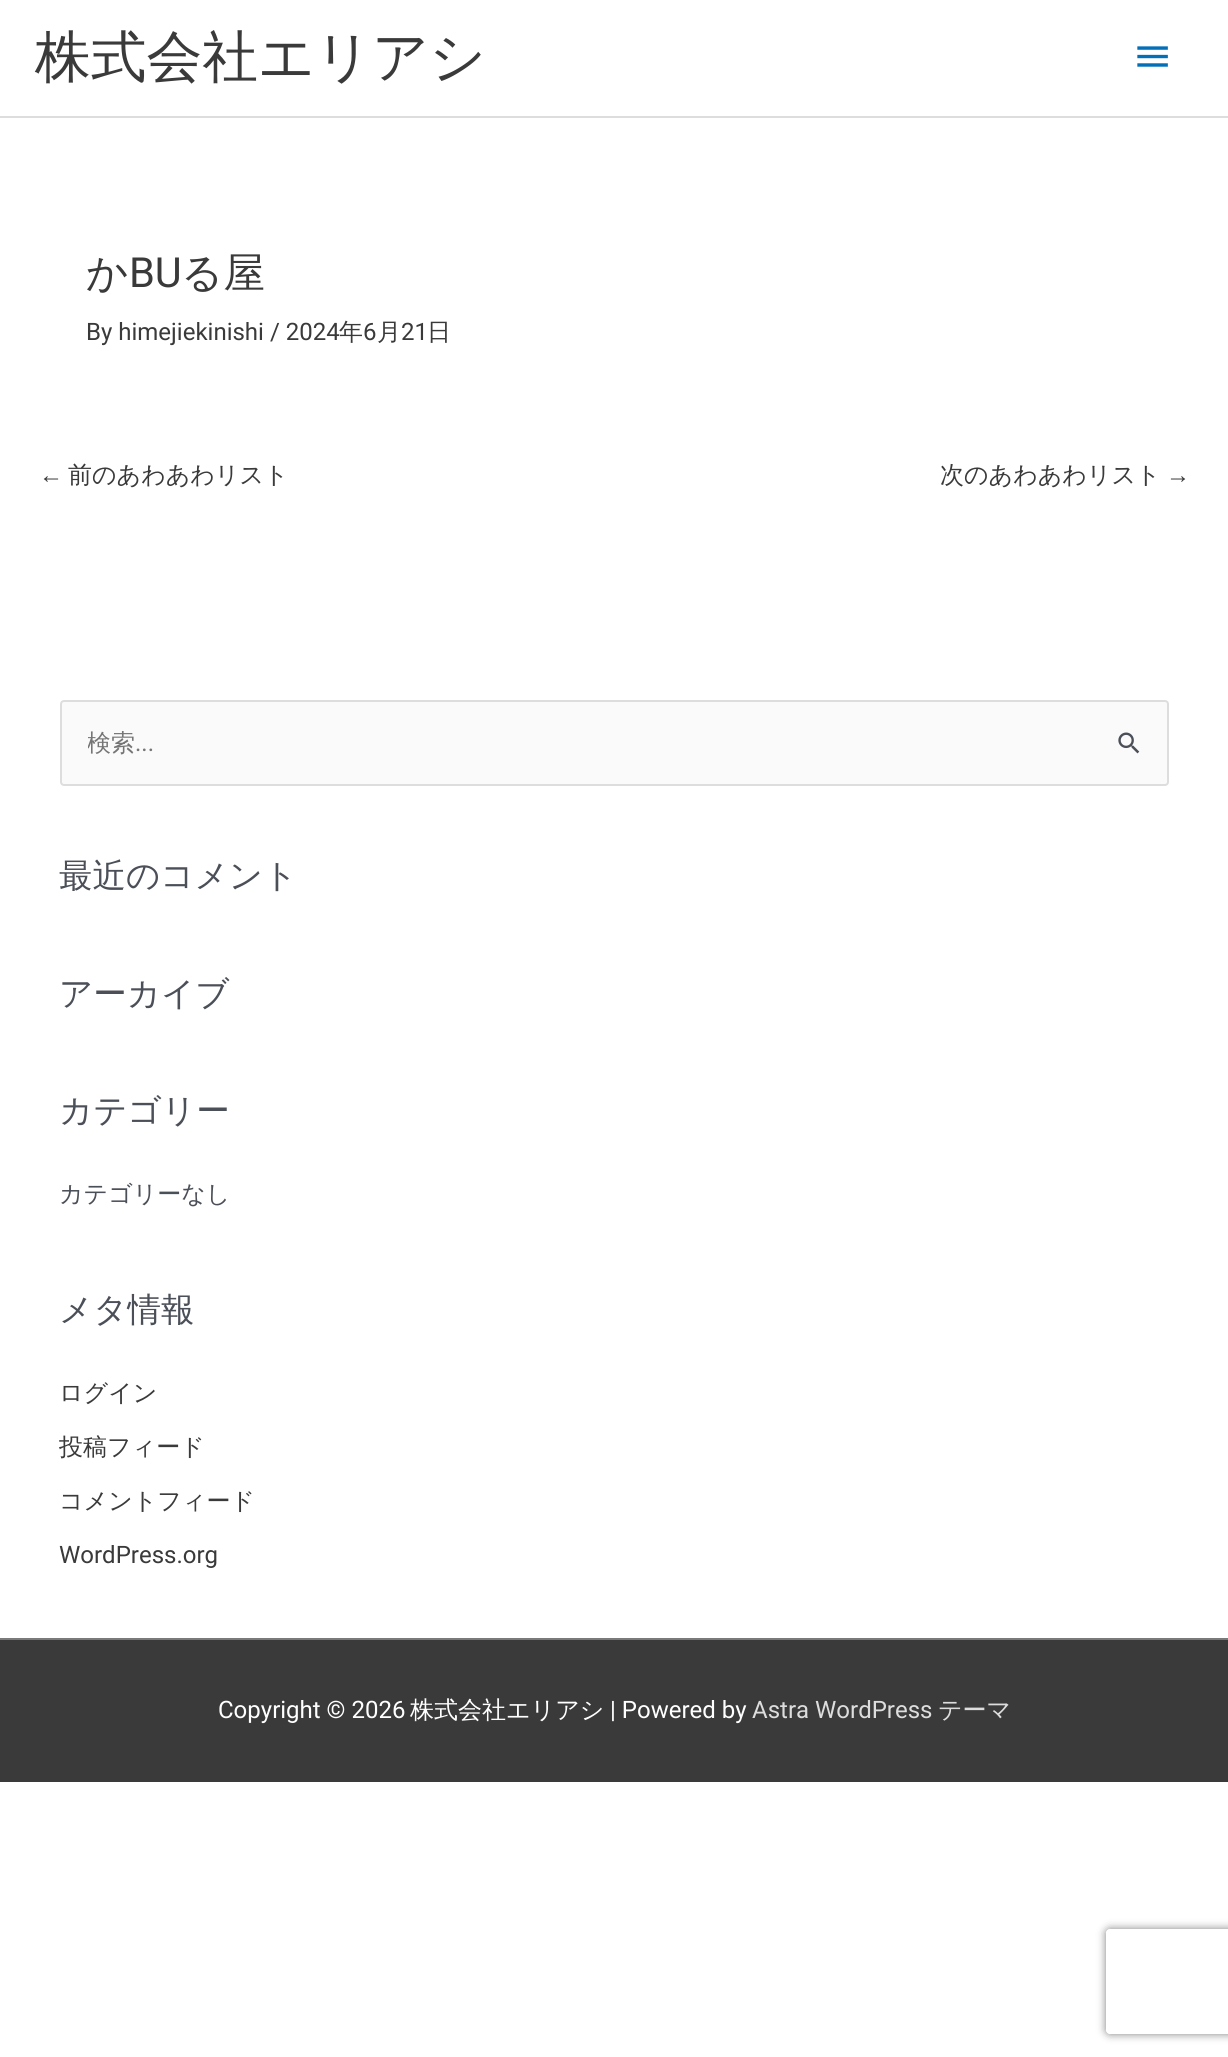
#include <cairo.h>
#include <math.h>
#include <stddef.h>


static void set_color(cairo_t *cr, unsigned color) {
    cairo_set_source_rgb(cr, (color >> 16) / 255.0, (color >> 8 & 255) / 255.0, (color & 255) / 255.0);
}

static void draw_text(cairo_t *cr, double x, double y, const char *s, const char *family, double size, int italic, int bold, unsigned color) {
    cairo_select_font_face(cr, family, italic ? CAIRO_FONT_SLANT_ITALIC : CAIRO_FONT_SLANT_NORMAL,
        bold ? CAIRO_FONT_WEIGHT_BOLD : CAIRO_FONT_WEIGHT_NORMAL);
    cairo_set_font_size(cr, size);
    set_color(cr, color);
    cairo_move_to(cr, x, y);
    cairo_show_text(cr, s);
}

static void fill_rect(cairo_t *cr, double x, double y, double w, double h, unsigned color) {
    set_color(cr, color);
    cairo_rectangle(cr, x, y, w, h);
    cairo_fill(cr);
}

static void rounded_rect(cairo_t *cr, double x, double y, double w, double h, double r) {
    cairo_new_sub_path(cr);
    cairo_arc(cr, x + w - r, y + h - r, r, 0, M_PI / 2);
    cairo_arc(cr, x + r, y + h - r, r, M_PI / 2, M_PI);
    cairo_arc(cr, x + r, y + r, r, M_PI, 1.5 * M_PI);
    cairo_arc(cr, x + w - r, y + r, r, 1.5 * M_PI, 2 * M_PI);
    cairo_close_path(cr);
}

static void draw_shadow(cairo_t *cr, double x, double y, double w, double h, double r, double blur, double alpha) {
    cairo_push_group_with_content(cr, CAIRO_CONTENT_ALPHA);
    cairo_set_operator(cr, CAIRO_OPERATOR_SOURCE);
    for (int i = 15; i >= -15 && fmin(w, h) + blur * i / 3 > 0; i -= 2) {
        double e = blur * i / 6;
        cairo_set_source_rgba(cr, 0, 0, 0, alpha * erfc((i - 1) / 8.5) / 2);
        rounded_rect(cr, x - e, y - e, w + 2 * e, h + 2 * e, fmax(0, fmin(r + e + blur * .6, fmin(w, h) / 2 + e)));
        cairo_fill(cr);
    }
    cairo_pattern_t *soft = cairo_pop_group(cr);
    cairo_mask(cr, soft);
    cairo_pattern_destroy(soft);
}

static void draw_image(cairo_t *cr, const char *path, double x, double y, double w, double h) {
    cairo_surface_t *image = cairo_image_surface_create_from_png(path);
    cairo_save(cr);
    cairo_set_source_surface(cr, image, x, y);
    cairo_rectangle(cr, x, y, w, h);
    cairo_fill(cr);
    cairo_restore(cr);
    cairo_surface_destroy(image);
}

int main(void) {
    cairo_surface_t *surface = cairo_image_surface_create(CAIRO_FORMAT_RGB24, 1228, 2057);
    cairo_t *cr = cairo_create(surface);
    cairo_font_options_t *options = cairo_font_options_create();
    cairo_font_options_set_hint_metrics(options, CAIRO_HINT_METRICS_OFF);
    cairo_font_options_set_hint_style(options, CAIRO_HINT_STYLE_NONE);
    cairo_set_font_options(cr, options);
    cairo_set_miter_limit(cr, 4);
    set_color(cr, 0xFFFFFF);
    cairo_paint(cr);
    fill_rect(cr, 0, 116, 1228, 2, 0xDDDDDD);
    draw_text(cr, 35, 76, "株式会社エリアシ", "WenQuanYi Zen Hei Medium", 55.75, 0, 0, 0x3A3A3A);
    draw_image(cr, "assets/img1.png", 1137, 46, 31, 21);
    draw_text(cr, 86, 287, "か", "WenQuanYi Zen Hei Medium", 41.5, 0, 0, 0x3A3A3A);
    draw_text(cr, 129, 287, "BU", "Roboto", 41.5, 0, 0, 0x3A3A3A);
    draw_text(cr, 181, 287, "る屋", "WenQuanYi Zen Hei Medium", 41.5, 0, 0, 0x3A3A3A);
    draw_text(cr, 86, 340, "By himejiekinishi / 2024", "Roboto", 24, 0, 0, 0x3A3A3A);
    draw_text(cr, 339, 340, "年", "WenQuanYi Zen Hei Medium", 24, 0, 0, 0x3A3A3A);
    draw_text(cr, 363, 340, "6", "Roboto", 24, 0, 0, 0x3A3A3A);
    draw_text(cr, 377, 340, "月", "WenQuanYi Zen Hei Medium", 24, 0, 0, 0x3A3A3A);
    draw_text(cr, 401, 340, "21", "Roboto", 24, 0, 0, 0x3A3A3A);
    draw_text(cr, 427, 340, "日", "WenQuanYi Zen Hei Medium", 24, 0, 0, 0x3A3A3A);
    draw_text(cr, 39, 483, "←", "Liberation Sans", 24, 0, 0, 0x3A3A3A);
    draw_text(cr, 68, 483, "前のあわあわリスト", "WenQuanYi Zen Hei Medium", 24, 0, 0, 0x3A3A3A);
    draw_text(cr, 940, 483, "次のあわあわリスト", "WenQuanYi Zen Hei Medium", 24, 0, 0, 0x3A3A3A);
    draw_text(cr, 1166, 483, "→", "Liberation Sans", 24, 0, 0, 0x3A3A3A);
    set_color(cr, 0xFAFAFA);
    rounded_rect(cr, 61, 701, 1107, 84, 3);
    cairo_fill_preserve(cr);
    set_color(cr, 0xDDDDDD);
    cairo_stroke(cr);
    cairo_save(cr);
    cairo_rectangle(cr, 88, 728, 994, 32);
    cairo_clip(cr);
    draw_text(cr, 87, 751, "検索", "WenQuanYi Zen Hei Medium", 24, 0, 0, 0x757575);
    cairo_restore(cr);
    draw_text(cr, 135, 751, "...", "Roboto", 24, 0, 0, 0x757575);
    draw_image(cr, "assets/img2.png", 1118, 732, 22, 22);
    draw_text(cr, 59, 887, "最近のコメント", "WenQuanYi Zen Hei Medium", 33.5, 0, 0, 0x4B4F58);
    draw_text(cr, 59, 1005, "アーカイブ", "WenQuanYi Zen Hei Medium", 33.5, 0, 0, 0x4B4F58);
    draw_text(cr, 59, 1122, "カテゴリー", "WenQuanYi Zen Hei Medium", 33.5, 0, 0, 0x4B4F58);
    draw_text(cr, 59, 1202, "カテゴリーなし", "WenQuanYi Zen Hei Medium", 24, 0, 0, 0x4B4F58);
    draw_text(cr, 59, 1321, "メタ情報", "WenQuanYi Zen Hei Medium", 33.5, 0, 0, 0x4B4F58);
    draw_text(cr, 59, 1401, "ログイン", "WenQuanYi Zen Hei Medium", 24, 0, 0, 0x3A3A3A);
    draw_text(cr, 59, 1455, "投稿フィード", "WenQuanYi Zen Hei Medium", 24, 0, 0, 0x3A3A3A);
    draw_text(cr, 59, 1509, "コメントフィード", "WenQuanYi Zen Hei Medium", 24, 0, 0, 0x3A3A3A);
    draw_text(cr, 59, 1563, "WordPress.org", "Roboto", 24, 0, 0, 0x3A3A3A);
    fill_rect(cr, 0, 1638, 1228, 2, 0x7A7A7A);
    fill_rect(cr, 0, 1640, 1228, 142, 0x3A3A3A);
    draw_text(cr, 218, 1718, "Copyright © 2026", "Roboto", 24, 0, 0, 0xFFFFFF);
    draw_text(cr, 410, 1718, "株式会社エリアシ", "WenQuanYi Zen Hei Medium", 24, 0, 0, 0xFFFFFF);
    draw_text(cr, 610, 1718, "| Powered by", "Roboto", 24, 0, 0, 0xFFFFFF);
    draw_text(cr, 752, 1718, "Astra WordPress", "Roboto", 24, 0, 0, 0xDDDDDD);
    draw_text(cr, 938, 1718, "テーマ", "WenQuanYi Zen Hei Medium", 24, 0, 0, 0xDDDDDD);
    cairo_save(cr);
    cairo_set_fill_rule(cr, CAIRO_FILL_RULE_EVEN_ODD);
    cairo_new_path(cr);
    cairo_move_to(cr, 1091, 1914);
    cairo_line_to(cr, 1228, 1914);
    cairo_line_to(cr, 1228, 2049);
    cairo_line_to(cr, 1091, 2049);
    cairo_close_path(cr);
    cairo_move_to(cr, 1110, 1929);
    cairo_line_to(cr, 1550, 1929);
    cairo_curve_to(cr, 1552, 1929, 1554, 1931, 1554, 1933);
    cairo_line_to(cr, 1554, 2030);
    cairo_curve_to(cr, 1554, 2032, 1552, 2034, 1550, 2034);
    cairo_line_to(cr, 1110, 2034);
    cairo_curve_to(cr, 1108, 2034, 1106, 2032, 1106, 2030);
    cairo_line_to(cr, 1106, 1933);
    cairo_curve_to(cr, 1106, 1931, 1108, 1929, 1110, 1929);
    cairo_close_path(cr);
    cairo_clip(cr);
    set_color(cr, 0x808080);
    draw_shadow(cr, 1106, 1929, 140, 105, 4, 4.5, 1);
    cairo_restore(cr);
    cairo_surface_write_to_png(surface, "output.png");
    cairo_font_options_destroy(options);
    cairo_destroy(cr);
    cairo_surface_destroy(surface);
    return 0;
}
